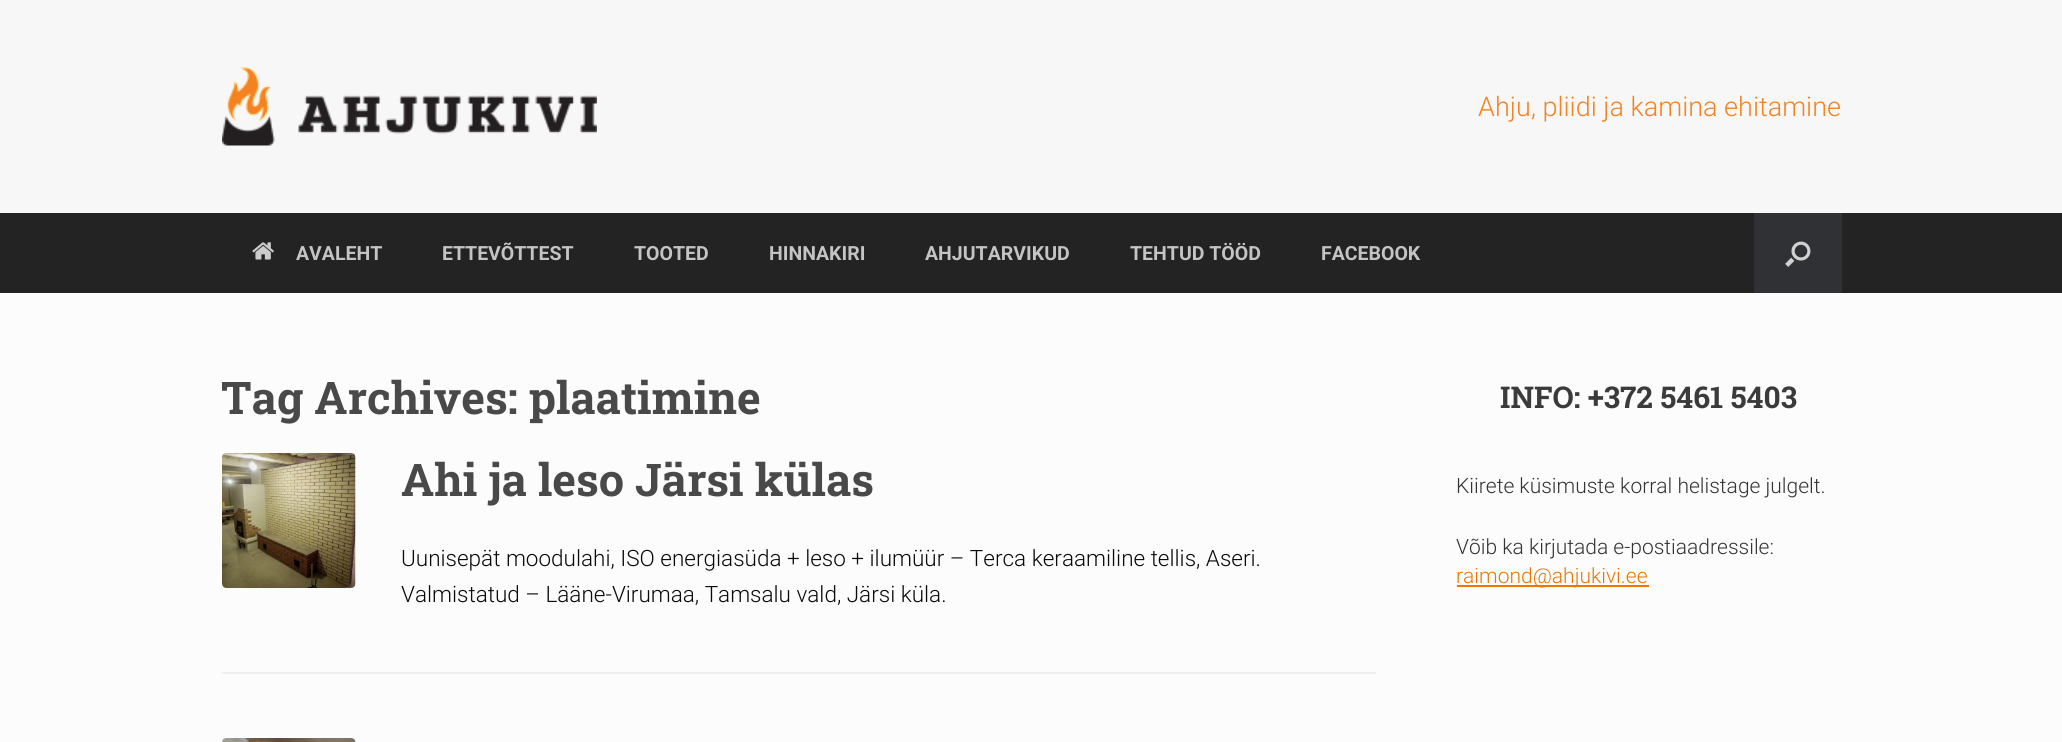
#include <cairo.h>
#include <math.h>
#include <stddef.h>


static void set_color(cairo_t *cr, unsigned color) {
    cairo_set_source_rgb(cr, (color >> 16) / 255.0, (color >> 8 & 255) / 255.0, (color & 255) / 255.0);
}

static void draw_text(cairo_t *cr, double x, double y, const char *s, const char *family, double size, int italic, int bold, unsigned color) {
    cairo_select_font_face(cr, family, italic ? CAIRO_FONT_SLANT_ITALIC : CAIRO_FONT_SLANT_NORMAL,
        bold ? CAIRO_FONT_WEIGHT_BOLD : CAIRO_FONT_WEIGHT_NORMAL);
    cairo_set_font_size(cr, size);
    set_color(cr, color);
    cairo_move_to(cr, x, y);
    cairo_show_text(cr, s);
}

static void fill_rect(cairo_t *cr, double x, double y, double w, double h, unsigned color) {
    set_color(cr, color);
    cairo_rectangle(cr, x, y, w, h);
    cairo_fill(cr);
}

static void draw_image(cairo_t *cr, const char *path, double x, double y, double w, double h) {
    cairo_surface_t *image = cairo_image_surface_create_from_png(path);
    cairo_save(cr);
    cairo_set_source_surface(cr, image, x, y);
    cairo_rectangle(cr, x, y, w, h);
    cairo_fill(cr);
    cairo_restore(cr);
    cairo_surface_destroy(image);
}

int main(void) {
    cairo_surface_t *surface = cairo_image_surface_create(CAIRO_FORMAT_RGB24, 2062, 742);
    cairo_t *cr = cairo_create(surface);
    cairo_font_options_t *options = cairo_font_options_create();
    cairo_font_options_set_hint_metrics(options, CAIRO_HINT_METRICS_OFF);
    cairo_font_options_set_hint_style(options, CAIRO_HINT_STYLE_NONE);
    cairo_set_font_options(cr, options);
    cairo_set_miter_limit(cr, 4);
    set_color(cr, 0xF7F7F7);
    cairo_paint(cr);
    draw_image(cr, "assets/img1.png", 222, 67, 375, 79);
    draw_text(cr, 1478, 116, "Ahju, pliidi ja kamina ehitamine", "Roboto Light", 27, 0, 0, 0xF58220);
    fill_rect(cr, 0, 213, 2062, 80, 0x232323);
    draw_image(cr, "assets/img2.png", 252, 242, 22, 18);
    draw_text(cr, 296, 260, "AVALEHT", "Roboto", 19.5, 0, 1, 0xC4C4C4);
    draw_text(cr, 442, 260, "ETTEVÕTTEST", "Roboto", 19.5, 0, 1, 0xC4C4C4);
    draw_text(cr, 634, 260, "TOOTED", "Roboto", 19.5, 0, 1, 0xC4C4C4);
    draw_text(cr, 769, 260, "HINNAKIRI", "Roboto", 19.5, 0, 1, 0xC4C4C4);
    draw_text(cr, 925, 260, "AHJUTARVIKUD", "Roboto", 19.5, 0, 1, 0xC4C4C4);
    draw_text(cr, 1130, 260, "TEHTUD TÖÖD", "Roboto", 19.5, 0, 1, 0xC4C4C4);
    draw_text(cr, 1321, 260, "FACEBOOK", "Roboto", 19.5, 0, 1, 0xC4C4C4);
    fill_rect(cr, 1754, 213, 88, 80, 0x303134);
    draw_image(cr, "assets/img3.png", 1785, 241, 26, 26);
    fill_rect(cr, 0, 293, 2062, 449, 0xFCFCFC);
    draw_text(cr, 221, 414, "Tag Archives: plaatimine", "Roboto Slab", 45, 0, 1, 0x494949);
    fill_rect(cr, 222, 672, 1154, 2, 0xEEEEEE);
    draw_image(cr, "assets/img4.png", 222, 453, 134, 135);
    draw_text(cr, 401, 496, "Ahi ja leso Järsi külas", "Roboto Slab", 45, 0, 1, 0x494949);
    draw_text(cr, 401, 566, "Uunisepät moodulahi, ISO energiasüda + leso + ilumüür – Terca keraamiline tellis, Aseri.", "Roboto Light", 22.5, 0, 0, 0x0A0A0A);
    draw_text(cr, 401, 602, "Valmistatud – Lääne-Virumaa, Tamsalu vald, Järsi küla.", "Roboto Light", 22.5, 0, 0, 0x0A0A0A);
    draw_image(cr, "assets/img5.png", 222, 738, 134, 4);
    draw_text(cr, 1500, 408, "INFO: +372 5461 5403", "Roboto Slab", 30, 0, 1, 0x3B3B3B);
    draw_text(cr, 1456, 493, "Kiirete küsimuste korral helistage julgelt.", "Roboto Light", 21, 0, 0, 0x333333);
    draw_text(cr, 1456, 554, "Võib ka kirjutada e-postiaadressile:", "Roboto Light", 21, 0, 0, 0x333333);
    fill_rect(cr, 1457, 585, 192, 2, 0xED7600);
    draw_text(cr, 1456, 583, "raimond@ahjukivi.ee", "Roboto Light", 21, 0, 0, 0xED7600);
    cairo_surface_write_to_png(surface, "output.png");
    cairo_font_options_destroy(options);
    cairo_destroy(cr);
    cairo_surface_destroy(surface);
    return 0;
}
